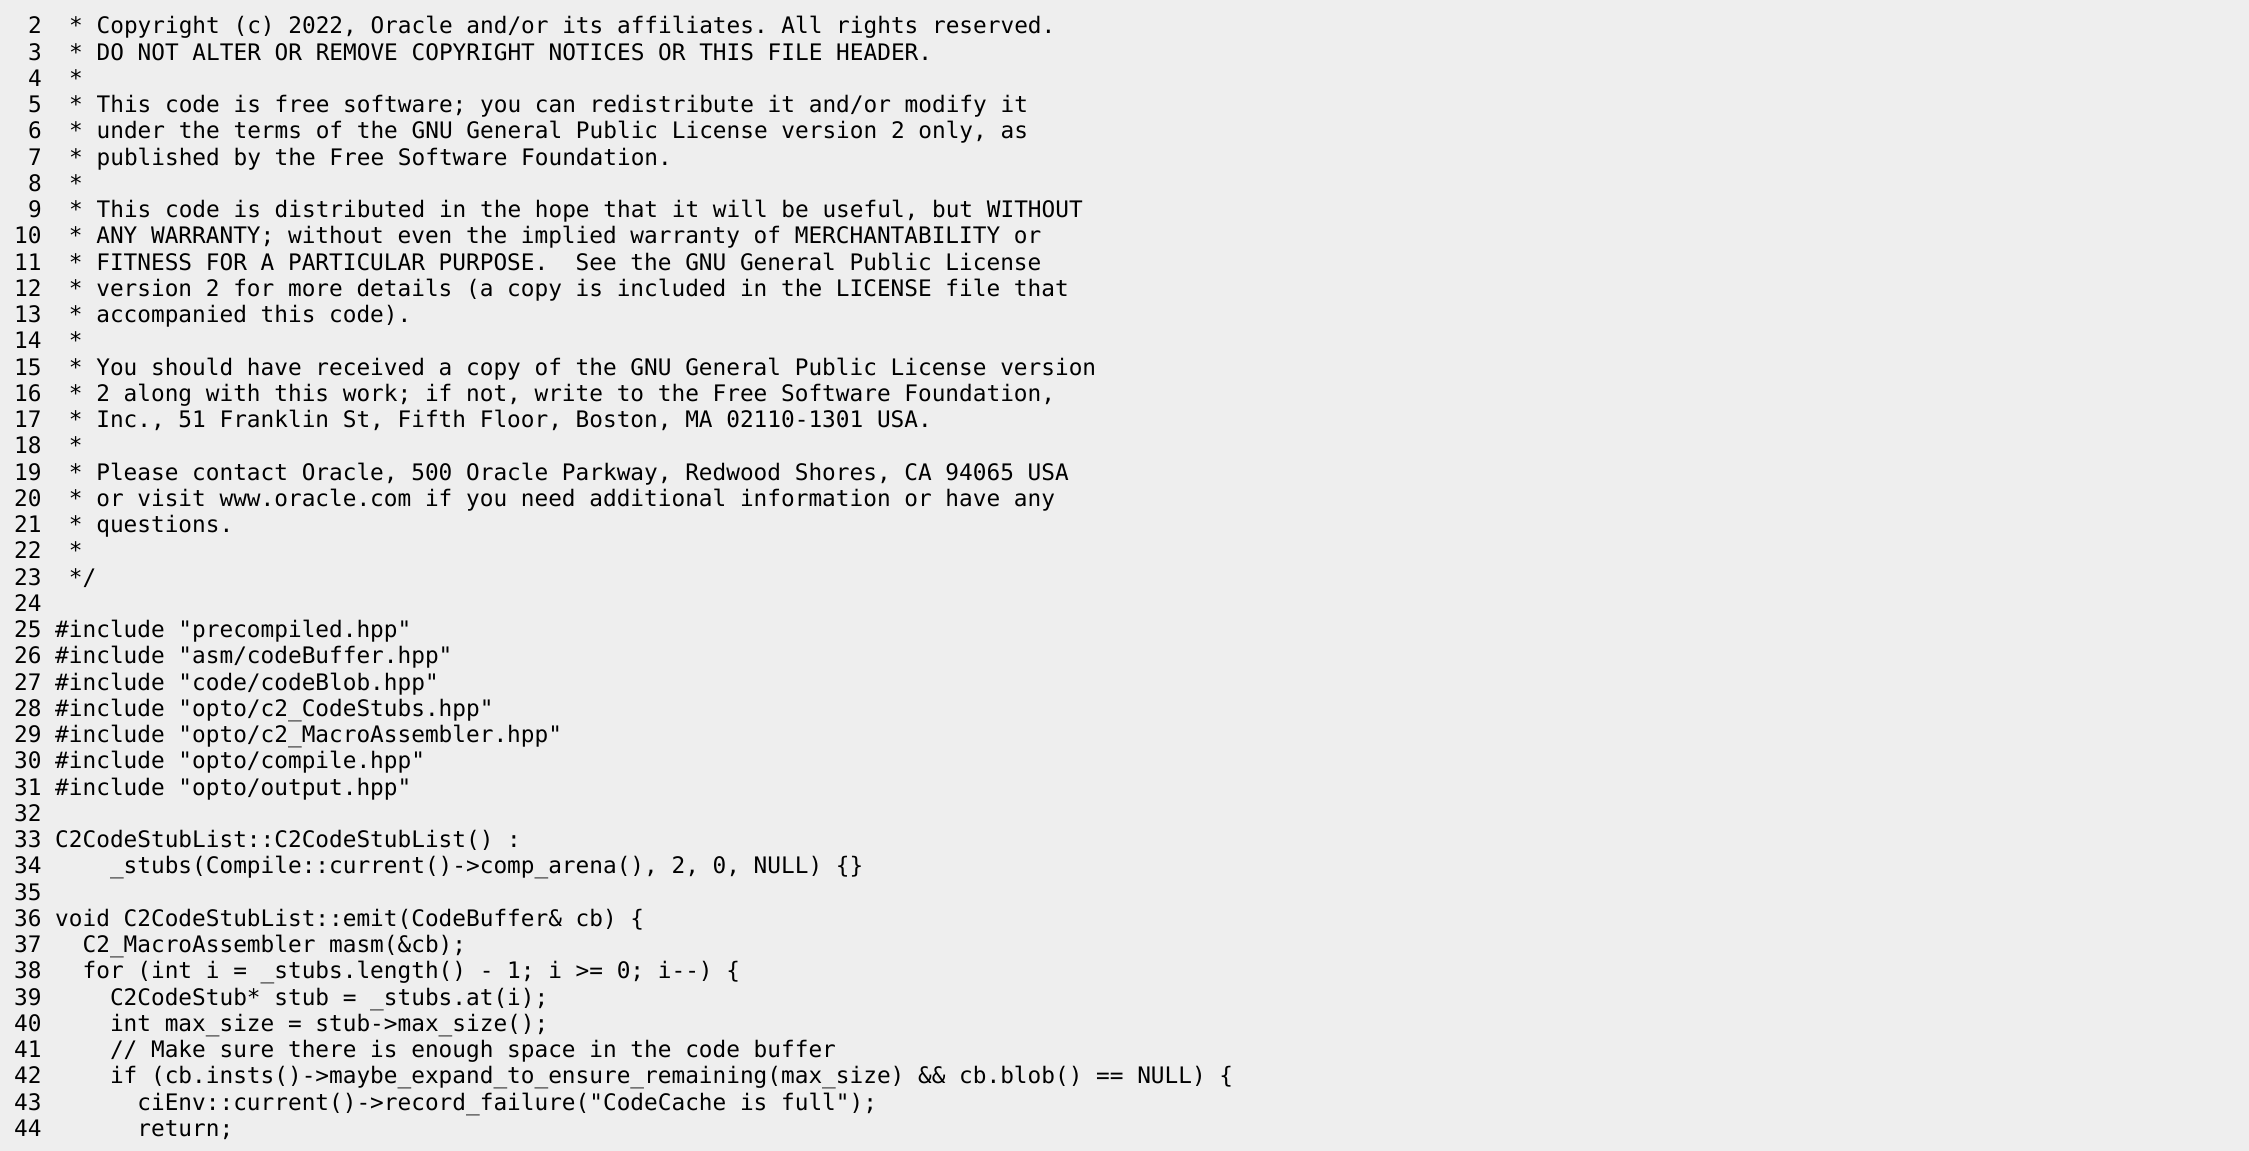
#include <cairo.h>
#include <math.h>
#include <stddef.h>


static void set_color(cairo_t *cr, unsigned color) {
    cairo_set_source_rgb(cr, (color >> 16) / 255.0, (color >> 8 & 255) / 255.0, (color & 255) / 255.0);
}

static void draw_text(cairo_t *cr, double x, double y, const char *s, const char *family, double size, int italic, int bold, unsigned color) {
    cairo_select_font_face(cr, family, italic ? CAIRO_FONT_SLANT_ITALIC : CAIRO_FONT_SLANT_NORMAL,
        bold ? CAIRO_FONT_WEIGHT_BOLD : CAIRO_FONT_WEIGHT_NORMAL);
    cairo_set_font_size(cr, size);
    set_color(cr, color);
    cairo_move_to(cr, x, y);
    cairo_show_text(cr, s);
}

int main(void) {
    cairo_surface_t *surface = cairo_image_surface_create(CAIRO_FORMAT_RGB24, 2249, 1151);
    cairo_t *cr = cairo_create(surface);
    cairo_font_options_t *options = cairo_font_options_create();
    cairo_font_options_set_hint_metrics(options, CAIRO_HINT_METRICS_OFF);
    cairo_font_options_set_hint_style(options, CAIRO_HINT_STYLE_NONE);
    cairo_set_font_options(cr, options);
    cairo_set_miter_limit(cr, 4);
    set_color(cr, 0xEEEEEE);
    cairo_paint(cr);
    draw_text(cr, 28, 33, "2  * Copyright (c) 2022, Oracle and/or its affiliates. All rights reserved.", "DejaVu Sans Mono", 22.75, 0, 0, 0x000000);
    draw_text(cr, 28, 60, "3  * DO NOT ALTER OR REMOVE COPYRIGHT NOTICES OR THIS FILE HEADER.", "DejaVu Sans Mono", 22.75, 0, 0, 0x000000);
    draw_text(cr, 28, 86, "4  *", "DejaVu Sans Mono", 22.75, 0, 0, 0x000000);
    draw_text(cr, 28, 112, "5  * This code is free software; you can redistribute it and/or modify it", "DejaVu Sans Mono", 22.75, 0, 0, 0x000000);
    draw_text(cr, 28, 138, "6  * under the terms of the GNU General Public License version 2 only, as", "DejaVu Sans Mono", 22.75, 0, 0, 0x000000);
    draw_text(cr, 28, 165, "7  * published by the Free Software Foundation.", "DejaVu Sans Mono", 22.75, 0, 0, 0x000000);
    draw_text(cr, 28, 191, "8  *", "DejaVu Sans Mono", 22.75, 0, 0, 0x000000);
    draw_text(cr, 28, 217, "9  * This code is distributed in the hope that it will be useful, but WITHOUT", "DejaVu Sans Mono", 22.75, 0, 0, 0x000000);
    draw_text(cr, 14, 243, "10  * ANY WARRANTY; without even the implied warranty of MERCHANTABILITY or", "DejaVu Sans Mono", 22.75, 0, 0, 0x000000);
    draw_text(cr, 14, 270, "11  * FITNESS FOR A PARTICULAR PURPOSE.  See the GNU General Public License", "DejaVu Sans Mono", 22.75, 0, 0, 0x000000);
    draw_text(cr, 14, 296, "12  * version 2 for more details (a copy is included in the LICENSE file that", "DejaVu Sans Mono", 22.75, 0, 0, 0x000000);
    draw_text(cr, 14, 322, "13  * accompanied this code).", "DejaVu Sans Mono", 22.75, 0, 0, 0x000000);
    draw_text(cr, 14, 348, "14  *", "DejaVu Sans Mono", 22.75, 0, 0, 0x000000);
    draw_text(cr, 14, 375, "15  * You should have received a copy of the GNU General Public License version", "DejaVu Sans Mono", 22.75, 0, 0, 0x000000);
    draw_text(cr, 14, 401, "16  * 2 along with this work; if not, write to the Free Software Foundation,", "DejaVu Sans Mono", 22.75, 0, 0, 0x000000);
    draw_text(cr, 14, 427, "17  * Inc., 51 Franklin St, Fifth Floor, Boston, MA 02110-1301 USA.", "DejaVu Sans Mono", 22.75, 0, 0, 0x000000);
    draw_text(cr, 14, 453, "18  *", "DejaVu Sans Mono", 22.75, 0, 0, 0x000000);
    draw_text(cr, 14, 480, "19  * Please contact Oracle, 500 Oracle Parkway, Redwood Shores, CA 94065 USA", "DejaVu Sans Mono", 22.75, 0, 0, 0x000000);
    draw_text(cr, 14, 506, "20  * or visit www.oracle.com if you need additional information or have any", "DejaVu Sans Mono", 22.75, 0, 0, 0x000000);
    draw_text(cr, 14, 532, "21  * questions.", "DejaVu Sans Mono", 22.75, 0, 0, 0x000000);
    draw_text(cr, 14, 558, "22  *", "DejaVu Sans Mono", 22.75, 0, 0, 0x000000);
    draw_text(cr, 14, 585, "23  */", "DejaVu Sans Mono", 22.75, 0, 0, 0x000000);
    draw_text(cr, 14, 611, "24", "DejaVu Sans Mono", 22.75, 0, 0, 0x000000);
    draw_text(cr, 14, 637, "25 #include \"precompiled.hpp\"", "DejaVu Sans Mono", 22.75, 0, 0, 0x000000);
    draw_text(cr, 14, 663, "26 #include \"asm/codeBuffer.hpp\"", "DejaVu Sans Mono", 22.75, 0, 0, 0x000000);
    draw_text(cr, 14, 690, "27 #include \"code/codeBlob.hpp\"", "DejaVu Sans Mono", 22.75, 0, 0, 0x000000);
    draw_text(cr, 14, 716, "28 #include \"opto/c2_CodeStubs.hpp\"", "DejaVu Sans Mono", 22.75, 0, 0, 0x000000);
    draw_text(cr, 14, 742, "29 #include \"opto/c2_MacroAssembler.hpp\"", "DejaVu Sans Mono", 22.75, 0, 0, 0x000000);
    draw_text(cr, 14, 768, "30 #include \"opto/compile.hpp\"", "DejaVu Sans Mono", 22.75, 0, 0, 0x000000);
    draw_text(cr, 14, 795, "31 #include \"opto/output.hpp\"", "DejaVu Sans Mono", 22.75, 0, 0, 0x000000);
    draw_text(cr, 14, 821, "32", "DejaVu Sans Mono", 22.75, 0, 0, 0x000000);
    draw_text(cr, 14, 847, "33 C2CodeStubList::C2CodeStubList() :", "DejaVu Sans Mono", 22.75, 0, 0, 0x000000);
    draw_text(cr, 14, 873, "34     _stubs(Compile::current()->comp_arena(), 2, 0, NULL) {}", "DejaVu Sans Mono", 22.75, 0, 0, 0x000000);
    draw_text(cr, 14, 900, "35", "DejaVu Sans Mono", 22.75, 0, 0, 0x000000);
    draw_text(cr, 14, 926, "36 void C2CodeStubList::emit(CodeBuffer& cb) {", "DejaVu Sans Mono", 22.75, 0, 0, 0x000000);
    draw_text(cr, 14, 952, "37   C2_MacroAssembler masm(&cb);", "DejaVu Sans Mono", 22.75, 0, 0, 0x000000);
    draw_text(cr, 14, 978, "38   for (int i = _stubs.length() - 1; i >= 0; i--) {", "DejaVu Sans Mono", 22.75, 0, 0, 0x000000);
    draw_text(cr, 14, 1005, "39     C2CodeStub* stub = _stubs.at(i);", "DejaVu Sans Mono", 22.75, 0, 0, 0x000000);
    draw_text(cr, 14, 1031, "40     int max_size = stub->max_size();", "DejaVu Sans Mono", 22.75, 0, 0, 0x000000);
    draw_text(cr, 14, 1057, "41     // Make sure there is enough space in the code buffer", "DejaVu Sans Mono", 22.75, 0, 0, 0x000000);
    draw_text(cr, 14, 1083, "42     if (cb.insts()->maybe_expand_to_ensure_remaining(max_size) && cb.blob() == NULL) {", "DejaVu Sans Mono", 22.75, 0, 0, 0x000000);
    draw_text(cr, 14, 1110, "43       ciEnv::current()->record_failure(\"CodeCache is full\");", "DejaVu Sans Mono", 22.75, 0, 0, 0x000000);
    draw_text(cr, 14, 1136, "44       return;", "DejaVu Sans Mono", 22.75, 0, 0, 0x000000);
    cairo_surface_write_to_png(surface, "output.png");
    cairo_font_options_destroy(options);
    cairo_destroy(cr);
    cairo_surface_destroy(surface);
    return 0;
}
